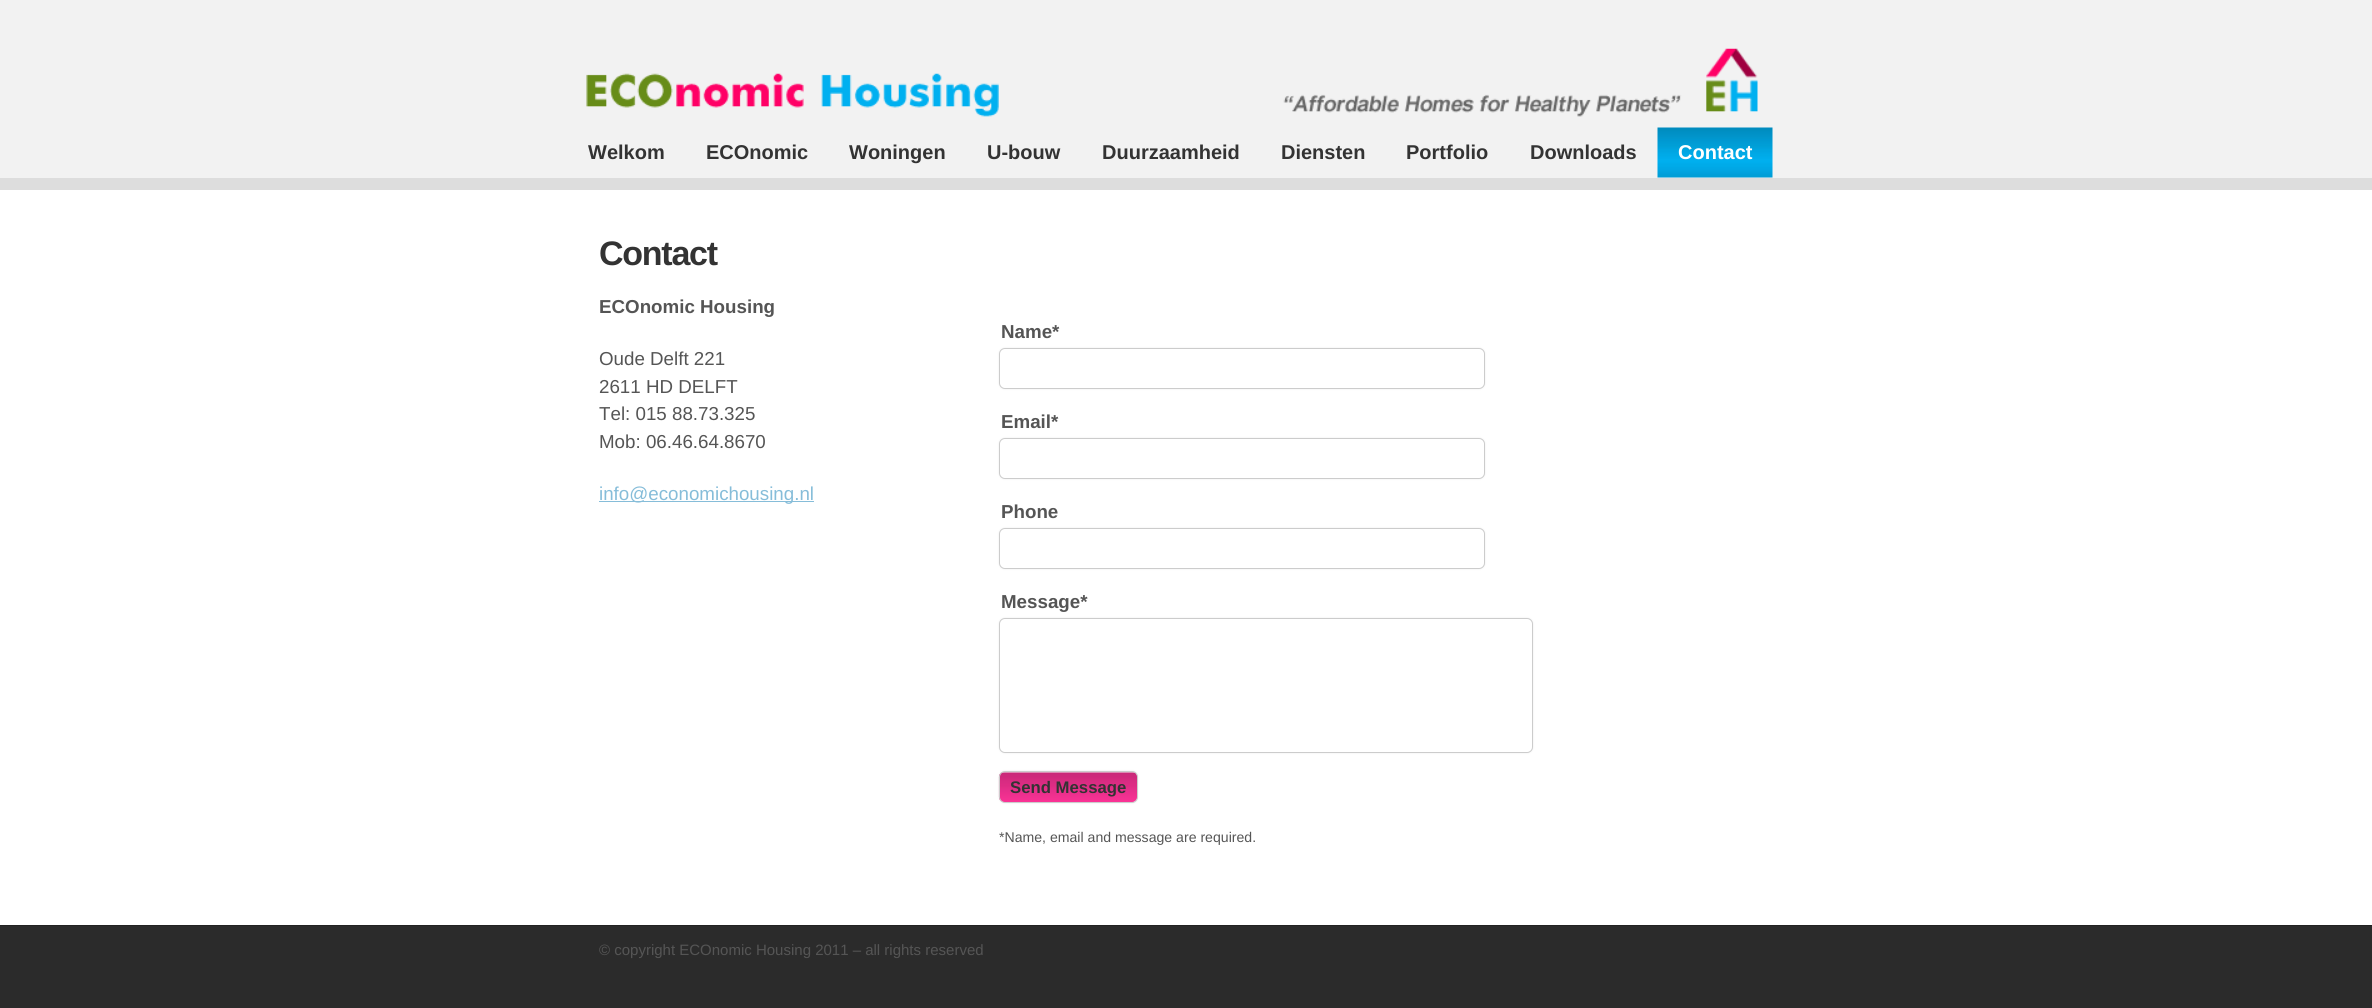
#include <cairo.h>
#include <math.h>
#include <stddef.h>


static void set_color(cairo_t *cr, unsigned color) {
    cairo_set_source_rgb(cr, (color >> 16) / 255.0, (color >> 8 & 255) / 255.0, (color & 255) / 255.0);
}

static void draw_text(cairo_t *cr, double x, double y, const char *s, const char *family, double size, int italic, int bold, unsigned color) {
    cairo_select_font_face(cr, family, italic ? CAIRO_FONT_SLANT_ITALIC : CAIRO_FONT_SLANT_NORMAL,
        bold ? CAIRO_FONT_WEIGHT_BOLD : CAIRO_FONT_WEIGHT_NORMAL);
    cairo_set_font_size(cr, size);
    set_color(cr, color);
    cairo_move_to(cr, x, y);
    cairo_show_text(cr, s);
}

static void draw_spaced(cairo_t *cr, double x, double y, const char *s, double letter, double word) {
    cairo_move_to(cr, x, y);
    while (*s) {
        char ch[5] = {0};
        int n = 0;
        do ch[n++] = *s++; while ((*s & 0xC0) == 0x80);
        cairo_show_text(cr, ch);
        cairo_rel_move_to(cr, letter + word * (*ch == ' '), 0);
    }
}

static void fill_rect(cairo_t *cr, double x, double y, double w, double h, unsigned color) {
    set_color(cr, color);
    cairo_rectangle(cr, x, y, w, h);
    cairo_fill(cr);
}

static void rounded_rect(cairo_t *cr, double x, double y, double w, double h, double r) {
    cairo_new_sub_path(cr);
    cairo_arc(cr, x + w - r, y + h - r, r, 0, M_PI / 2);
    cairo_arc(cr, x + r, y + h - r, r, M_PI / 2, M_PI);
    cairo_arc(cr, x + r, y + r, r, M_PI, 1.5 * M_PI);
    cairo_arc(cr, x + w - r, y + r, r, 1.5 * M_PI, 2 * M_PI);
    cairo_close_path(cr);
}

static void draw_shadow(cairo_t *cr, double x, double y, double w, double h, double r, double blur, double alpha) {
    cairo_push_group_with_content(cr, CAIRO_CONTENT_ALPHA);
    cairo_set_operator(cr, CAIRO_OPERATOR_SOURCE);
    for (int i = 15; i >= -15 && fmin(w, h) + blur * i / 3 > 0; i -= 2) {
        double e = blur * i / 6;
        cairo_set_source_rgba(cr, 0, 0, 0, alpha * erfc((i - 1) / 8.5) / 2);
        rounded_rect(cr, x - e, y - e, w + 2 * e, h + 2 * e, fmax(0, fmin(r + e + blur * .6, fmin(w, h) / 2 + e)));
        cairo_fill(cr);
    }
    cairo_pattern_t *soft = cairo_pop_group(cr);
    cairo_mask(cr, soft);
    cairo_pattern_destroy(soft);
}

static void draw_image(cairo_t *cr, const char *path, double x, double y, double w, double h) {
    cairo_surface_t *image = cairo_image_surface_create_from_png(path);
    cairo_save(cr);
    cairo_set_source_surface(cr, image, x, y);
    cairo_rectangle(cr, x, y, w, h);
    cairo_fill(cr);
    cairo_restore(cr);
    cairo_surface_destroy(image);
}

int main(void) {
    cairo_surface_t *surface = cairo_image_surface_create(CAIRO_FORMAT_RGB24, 2372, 1008);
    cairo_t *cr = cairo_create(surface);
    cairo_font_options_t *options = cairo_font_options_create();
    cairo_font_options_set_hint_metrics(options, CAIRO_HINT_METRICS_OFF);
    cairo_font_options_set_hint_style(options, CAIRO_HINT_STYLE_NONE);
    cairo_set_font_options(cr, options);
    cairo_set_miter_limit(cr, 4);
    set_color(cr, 0xFFFFFF);
    cairo_paint(cr);
    fill_rect(cr, 0, 0, 2372, 178, 0xF2F2F2);
    fill_rect(cr, 0, 178, 2372, 12, 0xDDDDDD);
    draw_image(cr, "assets/img1.png", 586, 48, 1172, 69);
    draw_text(cr, 588, 159, "Welkom", "Liberation Sans", 20, 0, 1, 0x333333);
    draw_text(cr, 706, 159, "ECOnomic", "Liberation Sans", 20, 0, 1, 0x333333);
    draw_text(cr, 849, 159, "Woningen", "Liberation Sans", 20, 0, 1, 0x333333);
    draw_text(cr, 987, 159, "U-bouw", "Liberation Sans", 20, 0, 1, 0x333333);
    draw_text(cr, 1102, 159, "Duurzaamheid", "Liberation Sans", 20, 0, 1, 0x333333);
    draw_text(cr, 1281, 159, "Diensten", "Liberation Sans", 20, 0, 1, 0x333333);
    draw_text(cr, 1406, 159, "Portfolio", "Liberation Sans", 20, 0, 1, 0x333333);
    draw_text(cr, 1530, 159, "Downloads", "Liberation Sans", 20, 0, 1, 0x333333);
    draw_image(cr, "assets/img2.png", 1657, 127, 116, 51);
    draw_text(cr, 1678, 159, "Contact", "Liberation Sans", 20, 0, 1, 0xFFFFFF);
    cairo_set_font_size(cr, 34);
    set_color(cr, 0x333333);
    draw_spaced(cr, 599, 265, "Contact", -1.25, 0);
    draw_text(cr, 599, 313, "ECOnomic Housing", "Liberation Sans", 18.75, 0, 1, 0x555555);
    draw_text(cr, 599, 365, "Oude Delft 221", "Liberation Sans", 18.75, 0, 0, 0x555555);
    draw_text(cr, 599, 393, "2611 HD DELFT", "Liberation Sans", 18.75, 0, 0, 0x555555);
    draw_text(cr, 599, 420, "Tel: 015 88.73.325", "Liberation Sans", 18.75, 0, 0, 0x555555);
    draw_text(cr, 599, 448, "Mob: 06.46.64.8670", "Liberation Sans", 18.75, 0, 0, 0x555555);
    fill_rect(cr, 599, 501, 215, 1, 0x86BDD9);
    draw_text(cr, 599, 500, "info@economichousing.nl", "Liberation Sans", 18.75, 0, 0, 0x86BDD9);
    draw_text(cr, 1001, 338, "Name*", "Liberation Sans", 18.75, 0, 1, 0x555555);
    set_color(cr, 0xEEEEEE);
    draw_shadow(cr, 999, 348, 486, 41, 6, 1, 1);
    set_color(cr, 0xFFFFFF);
    rounded_rect(cr, 999.5, 348.5, 485, 40, 5.5);
    cairo_fill_preserve(cr);
    set_color(cr, 0xCCCCCC);
    cairo_set_line_width(cr, 1);
    cairo_stroke(cr);
    draw_text(cr, 1001, 428, "Email*", "Liberation Sans", 18.75, 0, 1, 0x555555);
    set_color(cr, 0xEEEEEE);
    draw_shadow(cr, 999, 438, 486, 41, 6, 1, 1);
    set_color(cr, 0xFFFFFF);
    rounded_rect(cr, 999.5, 438.5, 485, 40, 5.5);
    cairo_fill_preserve(cr);
    set_color(cr, 0xCCCCCC);
    cairo_stroke(cr);
    draw_text(cr, 1001, 518, "Phone", "Liberation Sans", 18.75, 0, 1, 0x555555);
    set_color(cr, 0xEEEEEE);
    draw_shadow(cr, 999, 528, 486, 41, 6, 1, 1);
    set_color(cr, 0xFFFFFF);
    rounded_rect(cr, 999.5, 528.5, 485, 40, 5.5);
    cairo_fill_preserve(cr);
    set_color(cr, 0xCCCCCC);
    cairo_stroke(cr);
    draw_text(cr, 1001, 608, "Message*", "Liberation Sans", 18.75, 0, 1, 0x555555);
    set_color(cr, 0xEEEEEE);
    draw_shadow(cr, 999, 618, 534, 135, 6, 1, 1);
    set_color(cr, 0xFFFFFF);
    rounded_rect(cr, 999.5, 618.5, 533, 134, 5.5);
    cairo_fill_preserve(cr);
    set_color(cr, 0xCCCCCC);
    cairo_stroke(cr);
    set_color(cr, 0xEEEEEE);
    draw_shadow(cr, 999, 771, 139, 32, 6, 1, 1);
    draw_image(cr, "assets/img3.png", 998, 772, 140, 31);
    rounded_rect(cr, 999.5, 771.5, 138, 31, 5.5);
    set_color(cr, 0xCCCCCC);
    cairo_stroke(cr);
    draw_text(cr, 1010, 793, "Send Message", "Liberation Sans", 16.75, 0, 1, 0x333333);
    draw_text(cr, 999, 842, "*Name, email and message are required.", "Liberation Sans", 14.1, 0, 0, 0x555555);
    fill_rect(cr, 0, 926, 2372, 82, 0x2B2B2B);
    fill_rect(cr, 0, 925, 2372, 1, 0x222222);
    draw_text(cr, 599, 955, "© copyright ECOnomic Housing 2011 – all rights reserved", "Liberation Sans", 15, 0, 0, 0x555555);
    cairo_surface_write_to_png(surface, "output.png");
    cairo_font_options_destroy(options);
    cairo_destroy(cr);
    cairo_surface_destroy(surface);
    return 0;
}
